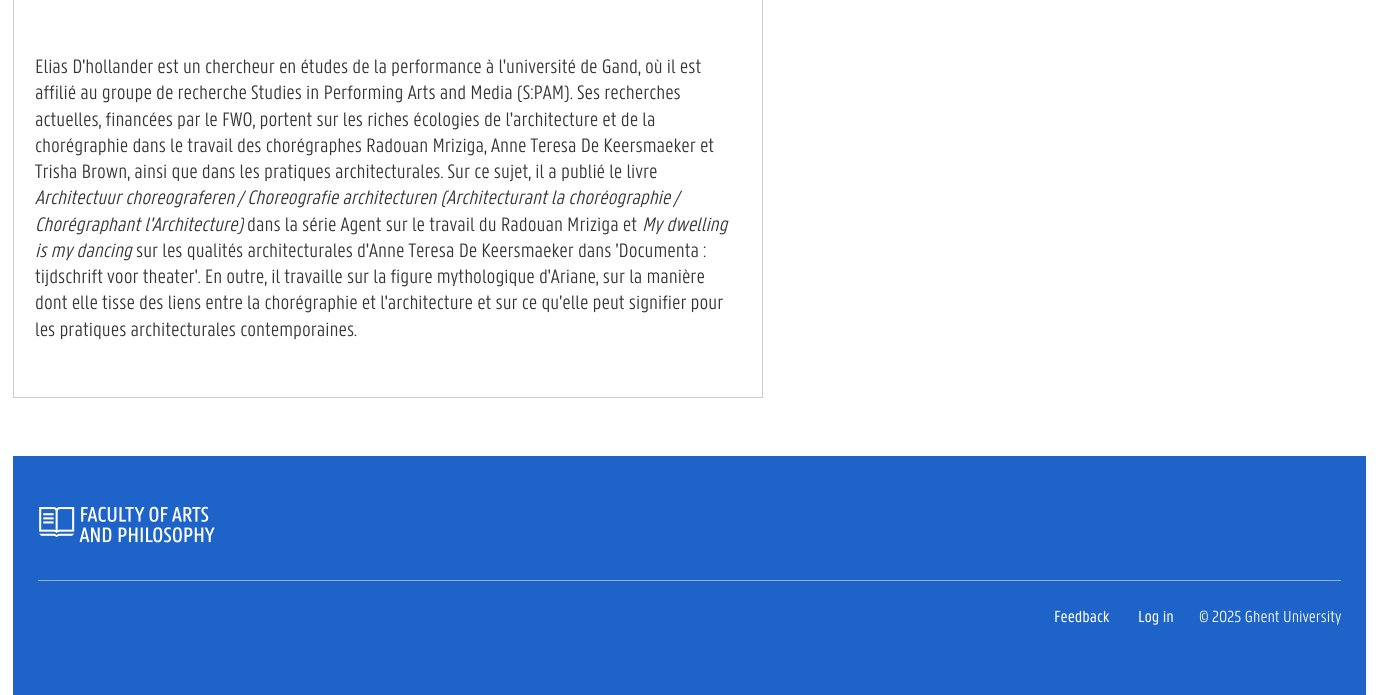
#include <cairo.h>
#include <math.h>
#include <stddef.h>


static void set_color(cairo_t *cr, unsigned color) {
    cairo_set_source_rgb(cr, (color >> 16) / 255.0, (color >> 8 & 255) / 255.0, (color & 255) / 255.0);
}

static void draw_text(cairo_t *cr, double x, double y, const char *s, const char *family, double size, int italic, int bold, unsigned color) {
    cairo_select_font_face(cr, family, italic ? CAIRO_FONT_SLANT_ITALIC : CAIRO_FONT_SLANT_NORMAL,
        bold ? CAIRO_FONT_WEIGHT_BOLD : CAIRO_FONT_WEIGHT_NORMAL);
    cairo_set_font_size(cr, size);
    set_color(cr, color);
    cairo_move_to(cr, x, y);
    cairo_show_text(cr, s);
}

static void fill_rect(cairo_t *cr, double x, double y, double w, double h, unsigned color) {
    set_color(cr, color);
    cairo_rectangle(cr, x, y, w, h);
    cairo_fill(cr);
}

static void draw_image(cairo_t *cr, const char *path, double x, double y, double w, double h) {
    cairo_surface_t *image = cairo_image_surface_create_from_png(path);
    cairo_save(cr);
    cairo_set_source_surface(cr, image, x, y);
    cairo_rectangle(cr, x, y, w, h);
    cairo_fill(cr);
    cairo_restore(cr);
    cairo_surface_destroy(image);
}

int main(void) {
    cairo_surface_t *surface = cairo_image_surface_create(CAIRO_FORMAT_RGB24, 1378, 695);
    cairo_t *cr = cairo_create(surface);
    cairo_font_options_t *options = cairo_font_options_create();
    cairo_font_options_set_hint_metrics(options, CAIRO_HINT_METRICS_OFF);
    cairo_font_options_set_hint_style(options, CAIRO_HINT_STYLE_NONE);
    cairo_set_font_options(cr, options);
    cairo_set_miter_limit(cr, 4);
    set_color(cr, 0xFFFFFF);
    cairo_paint(cr);
    cairo_rectangle(cr, 13.5, -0.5, 749, 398);
    set_color(cr, 0xCCCCCC);
    cairo_set_line_width(cr, 1);
    cairo_stroke(cr);
    draw_text(cr, 35, 73, "Elias D'hollander est un chercheur en études de la performance à l'université de Gand, où il est", "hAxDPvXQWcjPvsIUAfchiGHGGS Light", 21.25, 0, 0, 0x333333);
    draw_text(cr, 35, 99, "affilié au groupe de recherche Studies in Performing Arts and Media (S:PAM). Ses recherches", "hAxDPvXQWcjPvsIUAfchiGHGGS Light", 21.25, 0, 0, 0x333333);
    draw_text(cr, 35, 126, "actuelles, financées par le FWO, portent sur les riches écologies de l'architecture et de la", "hAxDPvXQWcjPvsIUAfchiGHGGS Light", 21.25, 0, 0, 0x333333);
    draw_text(cr, 35, 152, "chorégraphie dans le travail des chorégraphes Radouan Mriziga, Anne Teresa De Keersmaeker et", "hAxDPvXQWcjPvsIUAfchiGHGGS Light", 21.25, 0, 0, 0x333333);
    draw_text(cr, 35, 178, "Trisha Brown, ainsi que dans les pratiques architecturales. Sur ce sujet, il a publié le livre", "hAxDPvXQWcjPvsIUAfchiGHGGS Light", 21.25, 0, 0, 0x333333);
    draw_text(cr, 35, 204, "Architectuur choreograferen / Choreografie architecturen (Architecturant la choréographie /", "hAxDPvXQWcjPvsIUAfchiGHGGS Light", 21.25, 1, 0, 0x333333);
    draw_text(cr, 35, 231, "Chorégraphant l'Architecture)", "hAxDPvXQWcjPvsIUAfchiGHGGS Light", 21.25, 1, 0, 0x333333);
    draw_text(cr, 247, 231, "dans la série Agent sur le travail du Radouan Mriziga et", "hAxDPvXQWcjPvsIUAfchiGHGGS Light", 21.25, 0, 0, 0x333333);
    draw_text(cr, 642, 231, "My dwelling", "hAxDPvXQWcjPvsIUAfchiGHGGS Light", 21.25, 1, 0, 0x333333);
    draw_text(cr, 35, 257, "is my dancing", "hAxDPvXQWcjPvsIUAfchiGHGGS Light", 21.25, 1, 0, 0x333333);
    draw_text(cr, 136, 257, "sur les qualités architecturales d'Anne Teresa De Keersmaeker dans 'Documenta :", "hAxDPvXQWcjPvsIUAfchiGHGGS Light", 21.25, 0, 0, 0x333333);
    draw_text(cr, 35, 283, "tijdschrift voor theater'. En outre, il travaille sur la figure mythologique d'Ariane, sur la manière", "hAxDPvXQWcjPvsIUAfchiGHGGS Light", 21.25, 0, 0, 0x333333);
    draw_text(cr, 35, 309, "dont elle tisse des liens entre la chorégraphie et l'architecture et sur ce qu'elle peut signifier pour", "hAxDPvXQWcjPvsIUAfchiGHGGS Light", 21.25, 0, 0, 0x333333);
    draw_text(cr, 35, 336, "les pratiques architecturales contemporaines.", "hAxDPvXQWcjPvsIUAfchiGHGGS Light", 21.25, 0, 0, 0x333333);
    fill_rect(cr, 13, 456, 1353, 239, 0x1E64C8);
    fill_rect(cr, 38, 580, 1303, 1, 0x8FB2E4);
    draw_image(cr, "assets/img1.png", 39, 506, 176, 37);
    draw_text(cr, 1054, 622, "Feedback", "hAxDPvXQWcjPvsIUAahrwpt", 17.5, 0, 0, 0xFFFFFF);
    draw_text(cr, 1138, 622, "Log in", "hAxDPvXQWcjPvsIUAahrwpt", 17.5, 0, 0, 0xFFFFFF);
    draw_text(cr, 1199, 622, "© 2025 Ghent University", "hAxDPvXQWcjPvsIUAfchiGHGGS Light", 17.5, 0, 0, 0xFFFFFF);
    cairo_surface_write_to_png(surface, "output.png");
    cairo_font_options_destroy(options);
    cairo_destroy(cr);
    cairo_surface_destroy(surface);
    return 0;
}
